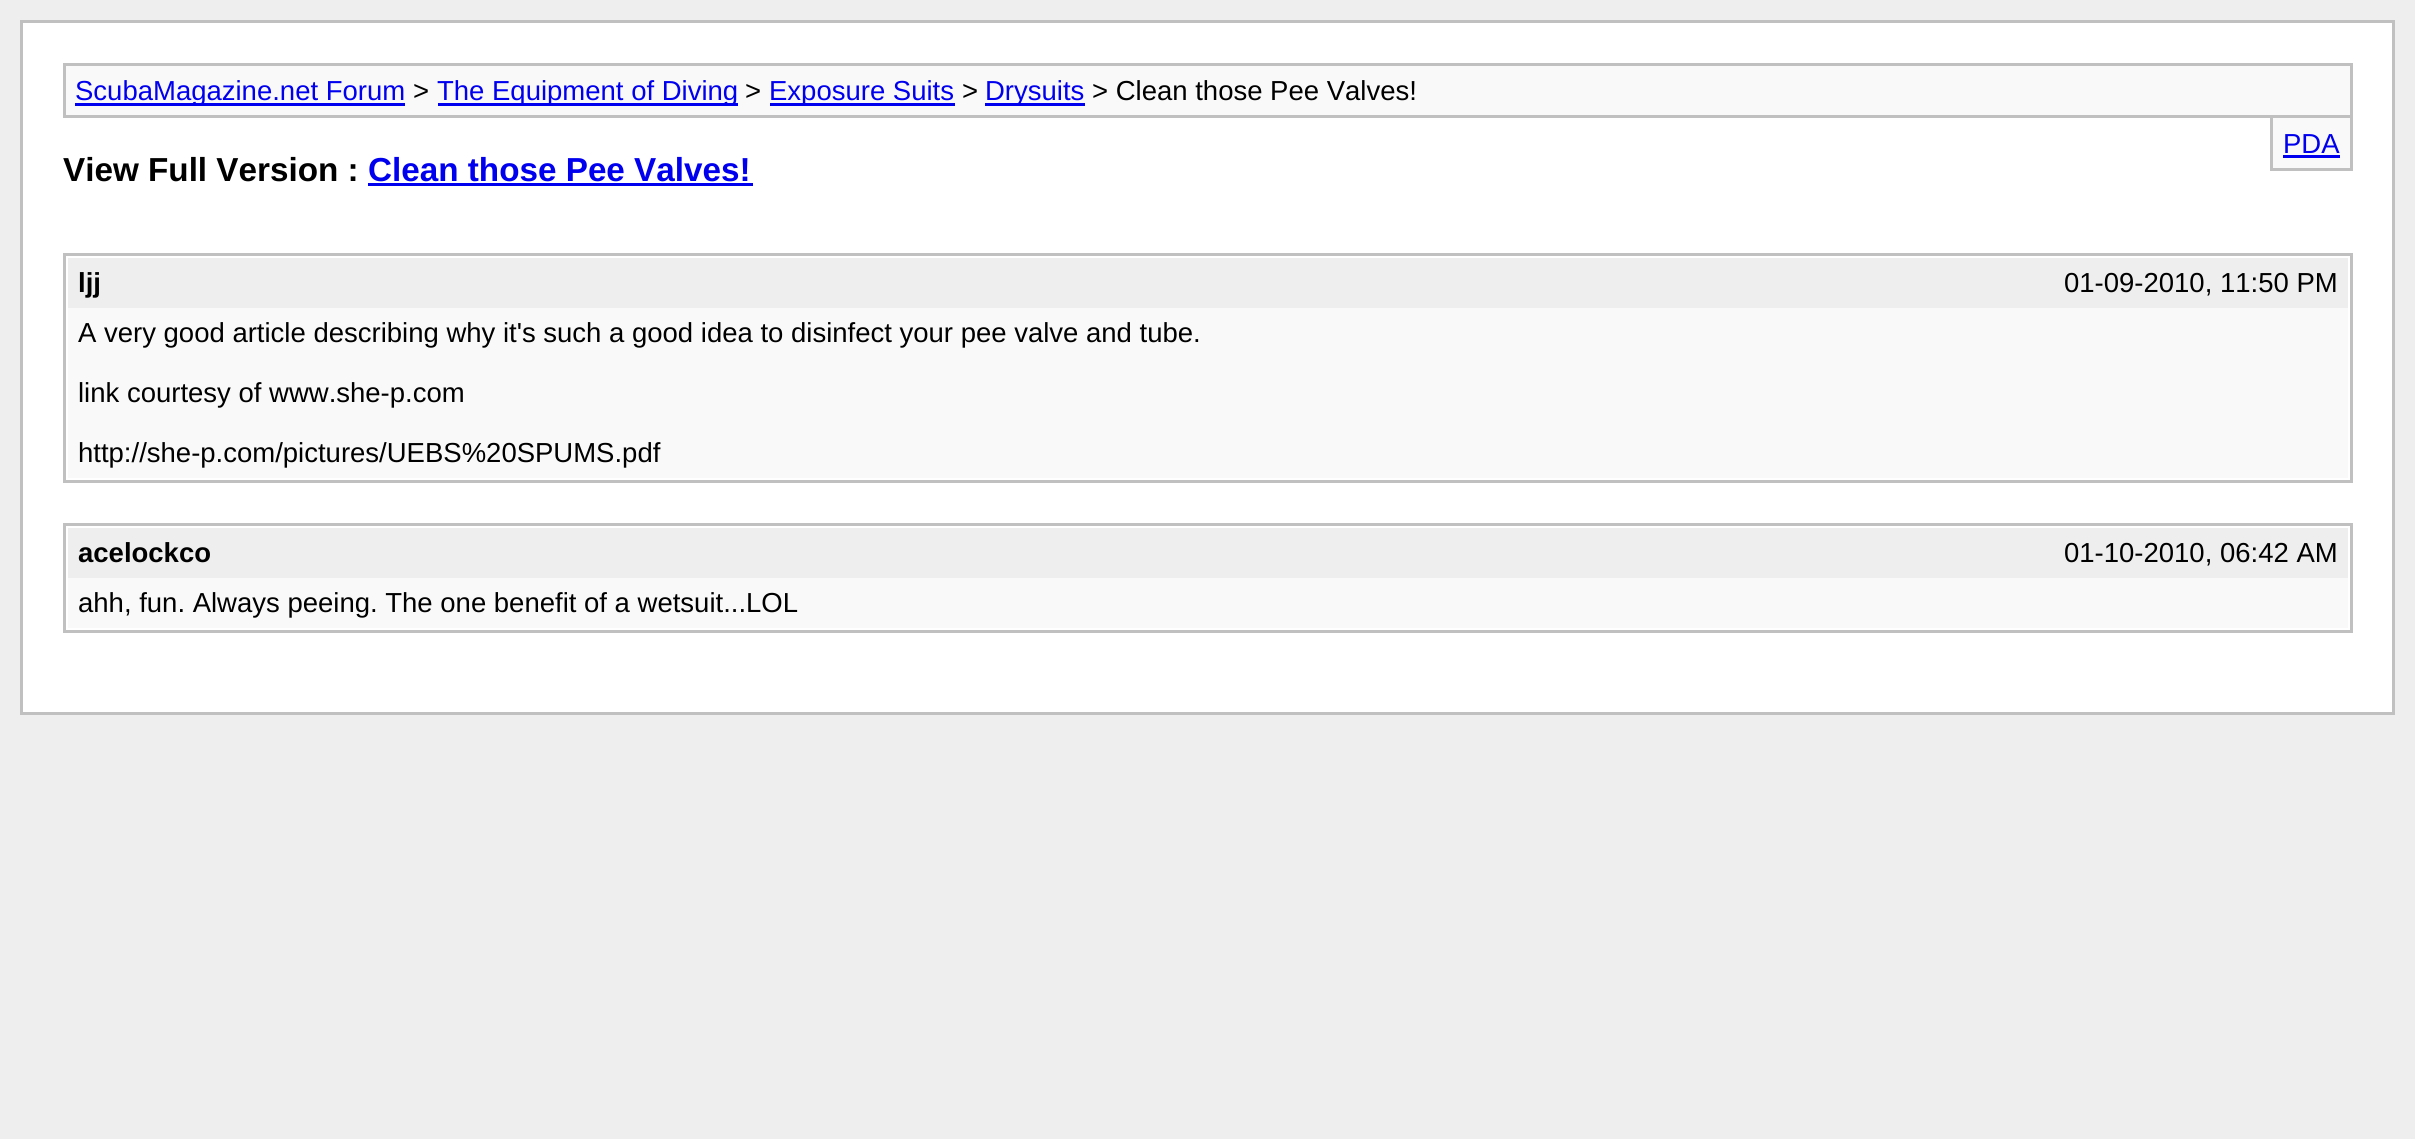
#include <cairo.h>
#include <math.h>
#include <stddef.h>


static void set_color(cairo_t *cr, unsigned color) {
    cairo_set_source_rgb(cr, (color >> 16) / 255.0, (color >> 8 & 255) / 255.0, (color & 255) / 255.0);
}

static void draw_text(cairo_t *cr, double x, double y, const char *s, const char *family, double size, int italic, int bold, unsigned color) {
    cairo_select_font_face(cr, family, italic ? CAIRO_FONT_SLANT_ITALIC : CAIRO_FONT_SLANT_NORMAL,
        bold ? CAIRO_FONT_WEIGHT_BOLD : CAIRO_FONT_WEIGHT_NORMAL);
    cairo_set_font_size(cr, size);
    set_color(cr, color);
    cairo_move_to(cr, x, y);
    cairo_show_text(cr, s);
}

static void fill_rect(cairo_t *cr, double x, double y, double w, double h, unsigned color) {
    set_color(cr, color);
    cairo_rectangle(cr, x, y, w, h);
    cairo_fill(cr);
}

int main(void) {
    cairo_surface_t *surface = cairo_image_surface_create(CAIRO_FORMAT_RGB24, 2415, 1139);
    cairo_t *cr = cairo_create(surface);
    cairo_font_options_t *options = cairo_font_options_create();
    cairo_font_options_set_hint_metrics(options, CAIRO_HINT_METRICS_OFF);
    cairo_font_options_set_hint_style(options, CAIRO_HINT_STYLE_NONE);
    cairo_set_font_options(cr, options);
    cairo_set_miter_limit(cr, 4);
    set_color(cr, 0xEEEEEE);
    cairo_paint(cr);
    set_color(cr, 0xFFFFFF);
    cairo_rectangle(cr, 21.5, 21.5, 2372, 692);
    cairo_fill_preserve(cr);
    set_color(cr, 0xC0C0C0);
    cairo_set_line_width(cr, 3);
    cairo_stroke(cr);
    set_color(cr, 0xF9F9F9);
    cairo_rectangle(cr, 64.5, 64.5, 2287, 52);
    cairo_fill_preserve(cr);
    set_color(cr, 0xC0C0C0);
    cairo_stroke(cr);
    fill_rect(cr, 75, 103, 330, 3, 0x0000EE);
    draw_text(cr, 75, 100, "ScubaMagazine.net Forum", "Liberation Sans", 27.5, 0, 0, 0x0000EE);
    draw_text(cr, 413, 100, ">", "Liberation Sans", 27.5, 0, 0, 0x000000);
    fill_rect(cr, 438, 103, 300, 3, 0x0000EE);
    draw_text(cr, 437, 100, "The Equipment of Diving", "Liberation Sans", 27.5, 0, 0, 0x0000EE);
    draw_text(cr, 745, 100, ">", "Liberation Sans", 27.5, 0, 0, 0x000000);
    fill_rect(cr, 770, 103, 185, 3, 0x0000EE);
    draw_text(cr, 769, 100, "Exposure Suits", "Liberation Sans", 27.5, 0, 0, 0x0000EE);
    draw_text(cr, 962, 100, ">", "Liberation Sans", 27.5, 0, 0, 0x000000);
    fill_rect(cr, 985, 103, 100, 3, 0x0000EE);
    draw_text(cr, 985, 100, "Drysuits", "Liberation Sans", 27.5, 0, 0, 0x0000EE);
    draw_text(cr, 1092, 100, "> Clean those Pee Valves!", "Liberation Sans", 27.5, 0, 0, 0x000000);
    fill_rect(cr, 2273, 118, 77, 50, 0xF9F9F9);
    fill_rect(cr, 2350, 118, 3, 52, 0xC0C0C0);
    fill_rect(cr, 2270, 168, 83, 3, 0xC0C0C0);
    fill_rect(cr, 2270, 118, 3, 52, 0xC0C0C0);
    draw_text(cr, 2283, 153, "PDA", "Liberation Sans", 27.5, 0, 0, 0x0000EE);
    fill_rect(cr, 2283, 155, 57, 3, 0x0000EE);
    draw_text(cr, 63, 181, "View Full Version :", "Liberation Sans", 33.25, 0, 1, 0x000000);
    draw_text(cr, 368, 181, "Clean those Pee Valves!", "Liberation Sans", 33.25, 0, 1, 0x0000EE);
    fill_rect(cr, 368, 183, 385, 3, 0x0000EE);
    cairo_rectangle(cr, 64.5, 254.5, 2287, 227);
    set_color(cr, 0xC0C0C0);
    cairo_stroke(cr);
    fill_rect(cr, 68, 258, 2280, 50, 0xEEEEEE);
    draw_text(cr, 78, 292, "ljj", "Liberation Sans", 27.5, 0, 1, 0x000000);
    draw_text(cr, 2064, 292, "01-09-2010, 11:50 PM", "Liberation Sans", 27.5, 0, 0, 0x000000);
    fill_rect(cr, 68, 308, 2280, 170, 0xF9F9F9);
    draw_text(cr, 78, 342, "A very good article describing why it's such a good idea to disinfect your pee valve and tube.", "Liberation Sans", 27.5, 0, 0, 0x000000);
    draw_text(cr, 78, 402, "link courtesy of www.she-p.com", "Liberation Sans", 27.5, 0, 0, 0x000000);
    draw_text(cr, 78, 462, "http://she-p.com/pictures/UEBS%20SPUMS.pdf", "Liberation Sans", 27.5, 0, 0, 0x000000);
    cairo_rectangle(cr, 64.5, 524.5, 2287, 107);
    set_color(cr, 0xC0C0C0);
    cairo_stroke(cr);
    fill_rect(cr, 68, 528, 2280, 50, 0xEEEEEE);
    draw_text(cr, 78, 562, "acelockco", "Liberation Sans", 27.5, 0, 1, 0x000000);
    draw_text(cr, 2064, 562, "01-10-2010, 06:42 AM", "Liberation Sans", 27.5, 0, 0, 0x000000);
    fill_rect(cr, 68, 578, 2280, 50, 0xF9F9F9);
    draw_text(cr, 78, 612, "ahh, fun. Always peeing. The one benefit of a wetsuit...LOL", "Liberation Sans", 27.5, 0, 0, 0x000000);
    cairo_surface_write_to_png(surface, "output.png");
    cairo_font_options_destroy(options);
    cairo_destroy(cr);
    cairo_surface_destroy(surface);
    return 0;
}
